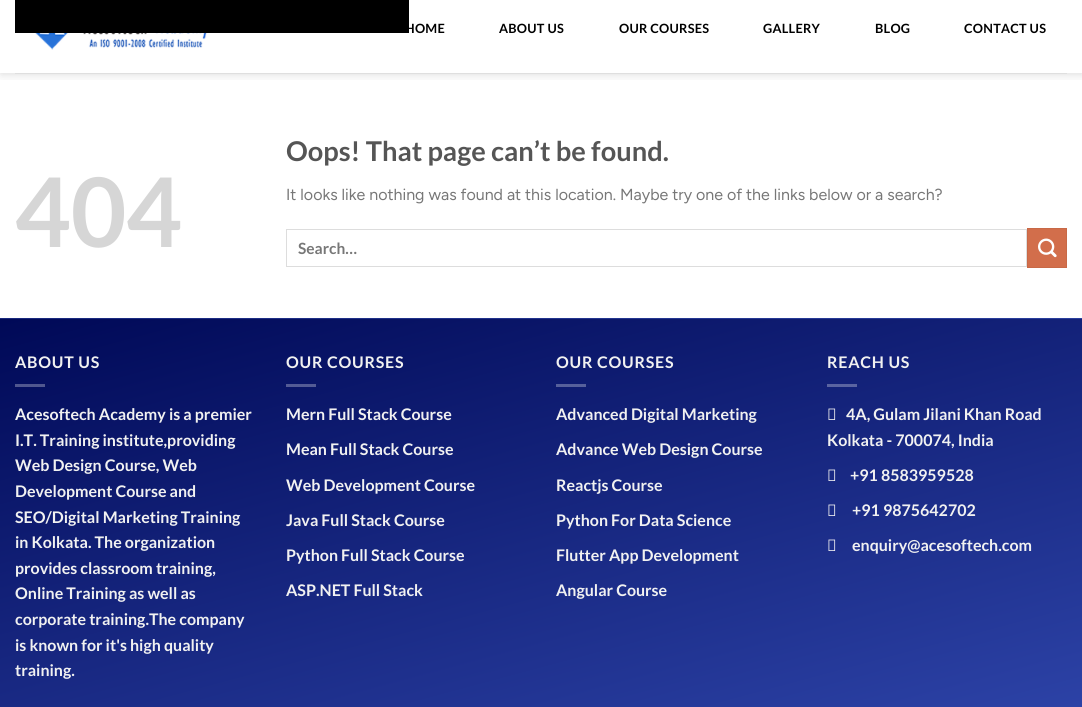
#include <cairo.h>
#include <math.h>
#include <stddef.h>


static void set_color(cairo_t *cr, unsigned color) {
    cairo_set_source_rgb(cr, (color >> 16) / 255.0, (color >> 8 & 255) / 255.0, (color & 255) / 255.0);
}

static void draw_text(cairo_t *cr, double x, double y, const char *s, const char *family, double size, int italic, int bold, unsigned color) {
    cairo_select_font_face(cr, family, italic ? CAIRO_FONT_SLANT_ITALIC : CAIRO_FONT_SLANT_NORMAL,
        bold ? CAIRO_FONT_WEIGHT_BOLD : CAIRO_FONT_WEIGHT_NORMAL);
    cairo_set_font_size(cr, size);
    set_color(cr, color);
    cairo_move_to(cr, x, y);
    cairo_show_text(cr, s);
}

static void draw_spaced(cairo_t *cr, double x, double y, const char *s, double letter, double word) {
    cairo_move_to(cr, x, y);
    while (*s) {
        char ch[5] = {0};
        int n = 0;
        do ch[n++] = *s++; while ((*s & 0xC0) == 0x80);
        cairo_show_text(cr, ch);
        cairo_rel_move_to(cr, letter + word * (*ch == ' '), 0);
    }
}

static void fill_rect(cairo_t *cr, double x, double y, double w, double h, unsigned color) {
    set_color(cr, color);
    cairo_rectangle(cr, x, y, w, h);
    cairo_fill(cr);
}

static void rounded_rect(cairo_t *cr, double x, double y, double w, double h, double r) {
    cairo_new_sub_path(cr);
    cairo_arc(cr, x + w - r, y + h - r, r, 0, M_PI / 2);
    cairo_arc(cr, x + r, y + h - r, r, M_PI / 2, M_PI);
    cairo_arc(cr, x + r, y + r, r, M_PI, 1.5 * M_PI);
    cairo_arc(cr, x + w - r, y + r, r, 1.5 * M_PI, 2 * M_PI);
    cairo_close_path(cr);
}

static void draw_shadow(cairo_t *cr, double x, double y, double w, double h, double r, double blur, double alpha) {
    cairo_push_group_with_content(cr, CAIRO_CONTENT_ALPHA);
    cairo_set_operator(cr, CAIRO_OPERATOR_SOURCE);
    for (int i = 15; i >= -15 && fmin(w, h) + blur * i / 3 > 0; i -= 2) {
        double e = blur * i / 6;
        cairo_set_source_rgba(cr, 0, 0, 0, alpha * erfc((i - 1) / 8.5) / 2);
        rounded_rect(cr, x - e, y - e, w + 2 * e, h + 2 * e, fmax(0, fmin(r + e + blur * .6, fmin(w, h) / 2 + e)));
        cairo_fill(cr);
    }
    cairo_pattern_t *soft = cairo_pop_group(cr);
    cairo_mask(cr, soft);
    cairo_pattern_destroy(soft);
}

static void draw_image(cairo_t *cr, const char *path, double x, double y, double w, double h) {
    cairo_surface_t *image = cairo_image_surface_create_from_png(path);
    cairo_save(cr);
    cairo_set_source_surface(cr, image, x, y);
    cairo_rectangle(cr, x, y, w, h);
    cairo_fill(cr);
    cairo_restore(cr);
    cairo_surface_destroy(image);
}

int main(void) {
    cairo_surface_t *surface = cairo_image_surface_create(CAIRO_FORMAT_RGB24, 1082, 707);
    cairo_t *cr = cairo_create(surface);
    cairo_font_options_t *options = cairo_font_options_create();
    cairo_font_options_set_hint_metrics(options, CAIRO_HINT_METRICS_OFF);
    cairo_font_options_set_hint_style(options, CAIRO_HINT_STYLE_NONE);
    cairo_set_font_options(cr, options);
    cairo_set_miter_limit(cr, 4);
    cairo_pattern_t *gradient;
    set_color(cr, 0xFFFFFF);
    cairo_paint(cr);
    cairo_save(cr);
    cairo_rectangle(cr, 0, 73, 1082, 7);
    cairo_clip(cr);
    set_color(cr, 0x000000);
    draw_shadow(cr, 1, -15, 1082, 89, 0, 5, 0.15);
    cairo_restore(cr);
    fill_rect(cr, 15, 0, 394, 33, 0x000000);
    cairo_select_font_face(cr, "Lato", CAIRO_FONT_SLANT_NORMAL, CAIRO_FONT_WEIGHT_BOLD);
    cairo_set_font_size(cr, 12.75);
    draw_spaced(cr, 405, 33, "HOME", 0.25, 0);
    draw_spaced(cr, 499, 33, "ABOUT US", 0.25, 0);
    draw_spaced(cr, 619, 33, "OUR COURSES", 0.25, 0);
    draw_spaced(cr, 763, 33, "GALLERY", 0.25, 0);
    draw_spaced(cr, 875, 33, "BLOG", 0.25, 0);
    draw_spaced(cr, 964, 33, "CONTACT US", 0.25, 0);
    draw_image(cr, "assets/img1.png", 35, 33, 172, 17);
    fill_rect(cr, 15, 73, 1052, 1, 0xDFDFDF);
    draw_text(cr, 15, 247, "404", "Lato", 96, 0, 1, 0xD6D6D6);
    draw_text(cr, 286, 161, "Oops! That page can’t be found.", "Lato", 27.25, 0, 1, 0x555555);
    draw_text(cr, 286, 200, "It looks like nothing was found at this location. Maybe try one of the links below or a search?", "Figtree", 16, 0, 0, 0x777777);
    cairo_rectangle(cr, 286.5, 229.5, 740, 37);
    set_color(cr, 0xDDDDDD);
    cairo_set_line_width(cr, 1);
    cairo_stroke(cr);
    draw_text(cr, 298, 254, "Search…", "Lato", 15.5, 0, 1, 0x777777);
    set_color(cr, 0xD26E4B);
    cairo_rectangle(cr, 1027.5, 228.5, 39, 39);
    cairo_fill_preserve(cr);
    set_color(cr, 0xC86947);
    cairo_stroke(cr);
    draw_image(cr, "assets/img2.png", 1038, 238, 19, 20);
    gradient = cairo_pattern_create_linear(456, -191, 626, 441);
    cairo_pattern_add_color_stop_rgba(gradient, 0, 0, 0.035, 0.325, 1);
    cairo_pattern_add_color_stop_rgba(gradient, 1, 0.165, 0.247, 0.62, 1);
    cairo_set_source(cr, gradient);
    cairo_pattern_destroy(gradient);
    cairo_rectangle(cr, 0, 318, 1082, 1);
    cairo_fill(cr);
    gradient = cairo_pattern_create_linear(456, 197, 626, 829);
    cairo_pattern_add_color_stop_rgba(gradient, 0, 0, 0.035, 0.341, 1);
    cairo_pattern_add_color_stop_rgba(gradient, 1, 0.173, 0.259, 0.651, 1);
    cairo_set_source(cr, gradient);
    cairo_pattern_destroy(gradient);
    cairo_rectangle(cr, 0, 319, 1082, 388);
    cairo_fill(cr);
    cairo_set_font_size(cr, 16);
    set_color(cr, 0xF1F1F1);
    draw_spaced(cr, 15, 368, "ABOUT US", 0.75, 0);
    fill_rect(cr, 15, 384, 30, 3, 0x50578F);
    draw_text(cr, 15, 420, "Acesoftech Academy is a premier", "Lato", 16, 0, 1, 0xF1F1F1);
    draw_text(cr, 15, 446, "I.T. Training institute,providing", "Lato", 16, 0, 1, 0xF1F1F1);
    draw_text(cr, 15, 471, "Web Design Course, Web", "Lato", 16, 0, 1, 0xF1F1F1);
    draw_text(cr, 15, 497, "Development Course and", "Lato", 16, 0, 1, 0xF1F1F1);
    draw_text(cr, 15, 523, "SEO/Digital Marketing Training", "Lato", 16, 0, 1, 0xF1F1F1);
    draw_text(cr, 15, 548, "in Kolkata. The organization", "Lato", 16, 0, 1, 0xF1F1F1);
    draw_text(cr, 15, 574, "provides classroom training,", "Lato", 16, 0, 1, 0xF1F1F1);
    draw_text(cr, 15, 599, "Online Training as well as", "Lato", 16, 0, 1, 0xF1F1F1);
    draw_text(cr, 15, 625, "corporate training.The company", "Lato", 16, 0, 1, 0xF1F1F1);
    draw_text(cr, 15, 651, "is known for it's high quality", "Lato", 16, 0, 1, 0xF1F1F1);
    draw_text(cr, 15, 676, "training.", "Lato", 16, 0, 1, 0xF1F1F1);
    draw_spaced(cr, 286, 368, "OUR COURSES", 0.75, 0);
    fill_rect(cr, 286, 384, 30, 3, 0x535B95);
    draw_text(cr, 286, 420, "Mern Full Stack Course", "Lato", 16, 0, 1, 0xF1F1F1);
    draw_text(cr, 286, 455, "Mean Full Stack Course", "Lato", 16, 0, 1, 0xF1F1F1);
    draw_text(cr, 286, 491, "Web Development Course", "Lato", 16, 0, 1, 0xF1F1F1);
    draw_text(cr, 286, 526, "Java Full Stack Course", "Lato", 16, 0, 1, 0xF1F1F1);
    draw_text(cr, 286, 561, "Python Full Stack Course", "Lato", 16, 0, 1, 0xF1F1F1);
    draw_text(cr, 286, 596, "ASP.NET Full Stack", "Lato", 16, 0, 1, 0xF1F1F1);
    draw_spaced(cr, 556, 368, "OUR COURSES", 0.75, 0);
    fill_rect(cr, 556, 384, 30, 3, 0x56609B);
    draw_text(cr, 556, 420, "Advanced Digital Marketing", "Lato", 16, 0, 1, 0xF1F1F1);
    draw_text(cr, 556, 455, "Advance Web Design Course", "Lato", 16, 0, 1, 0xF1F1F1);
    draw_text(cr, 556, 491, "Reactjs Course", "Lato", 16, 0, 1, 0xF1F1F1);
    draw_text(cr, 556, 526, "Python For Data Science", "Lato", 16, 0, 1, 0xF1F1F1);
    draw_text(cr, 556, 561, "Flutter App Development", "Lato", 16, 0, 1, 0xF1F1F1);
    draw_text(cr, 556, 596, "Angular Course", "Lato", 16, 0, 1, 0xF1F1F1);
    draw_spaced(cr, 827, 368, "REACH US", 0.75, 0);
    fill_rect(cr, 827, 384, 30, 3, 0x5A64A1);
    draw_image(cr, "assets/img3.png", 828, 408, 8, 12);
    draw_text(cr, 846, 420, "4A, Gulam Jilani Khan Road", "Lato", 16, 0, 1, 0xF1F1F1);
    draw_text(cr, 827, 446, "Kolkata - 700074, India", "Lato", 16, 0, 1, 0xF1F1F1);
    draw_image(cr, "assets/img4.png", 828, 469, 8, 12);
    draw_text(cr, 850, 481, "+91 8583959528", "Lato", 16, 0, 1, 0xF1F1F1);
    draw_image(cr, "assets/img5.png", 828, 504, 8, 12);
    draw_text(cr, 852, 516, "+91 9875642702", "Lato", 16, 0, 1, 0xF1F1F1);
    draw_image(cr, "assets/img6.png", 828, 539, 8, 12);
    draw_text(cr, 852, 551, "enquiry@acesoftech.com", "Lato", 16, 0, 1, 0xF1F1F1);
    cairo_surface_write_to_png(surface, "output.png");
    cairo_font_options_destroy(options);
    cairo_destroy(cr);
    cairo_surface_destroy(surface);
    return 0;
}
